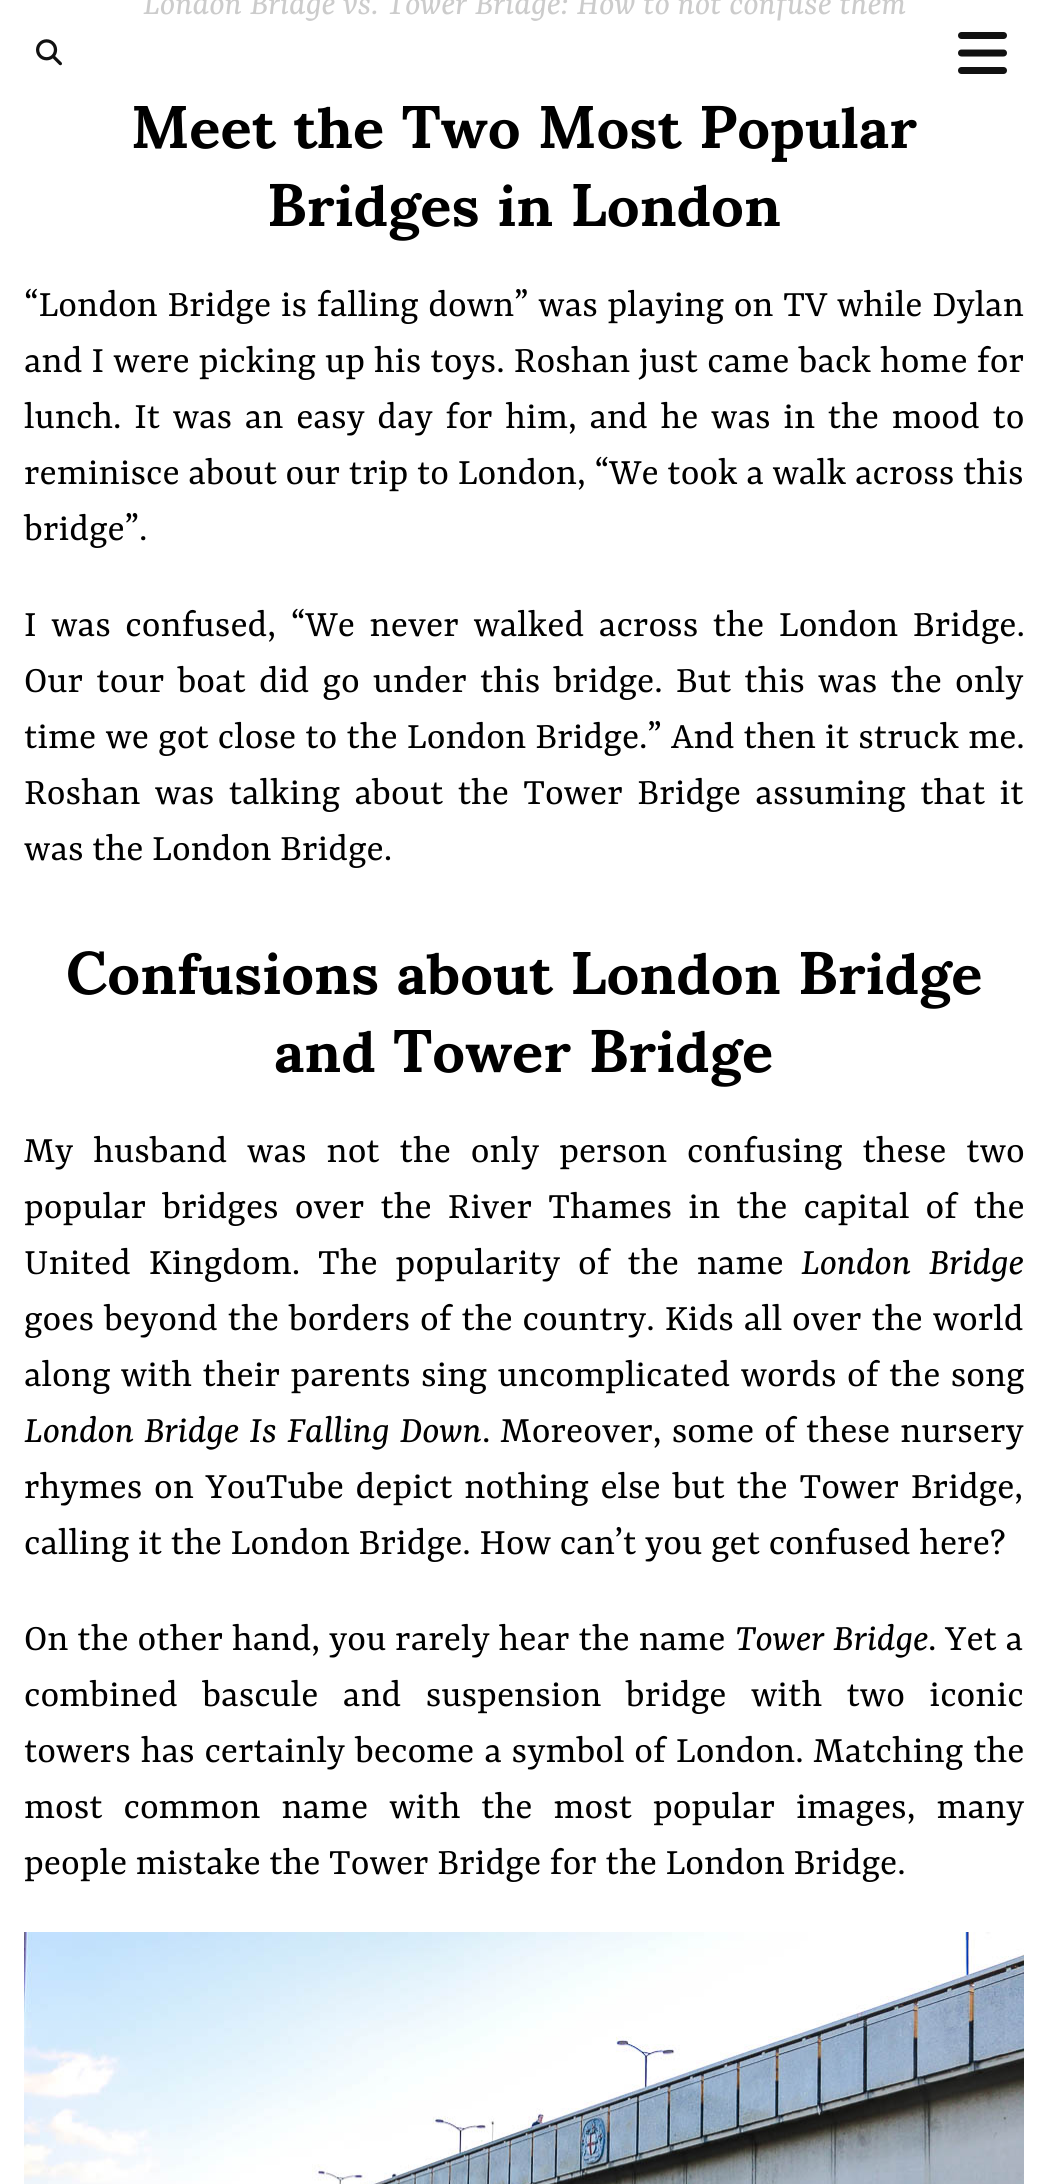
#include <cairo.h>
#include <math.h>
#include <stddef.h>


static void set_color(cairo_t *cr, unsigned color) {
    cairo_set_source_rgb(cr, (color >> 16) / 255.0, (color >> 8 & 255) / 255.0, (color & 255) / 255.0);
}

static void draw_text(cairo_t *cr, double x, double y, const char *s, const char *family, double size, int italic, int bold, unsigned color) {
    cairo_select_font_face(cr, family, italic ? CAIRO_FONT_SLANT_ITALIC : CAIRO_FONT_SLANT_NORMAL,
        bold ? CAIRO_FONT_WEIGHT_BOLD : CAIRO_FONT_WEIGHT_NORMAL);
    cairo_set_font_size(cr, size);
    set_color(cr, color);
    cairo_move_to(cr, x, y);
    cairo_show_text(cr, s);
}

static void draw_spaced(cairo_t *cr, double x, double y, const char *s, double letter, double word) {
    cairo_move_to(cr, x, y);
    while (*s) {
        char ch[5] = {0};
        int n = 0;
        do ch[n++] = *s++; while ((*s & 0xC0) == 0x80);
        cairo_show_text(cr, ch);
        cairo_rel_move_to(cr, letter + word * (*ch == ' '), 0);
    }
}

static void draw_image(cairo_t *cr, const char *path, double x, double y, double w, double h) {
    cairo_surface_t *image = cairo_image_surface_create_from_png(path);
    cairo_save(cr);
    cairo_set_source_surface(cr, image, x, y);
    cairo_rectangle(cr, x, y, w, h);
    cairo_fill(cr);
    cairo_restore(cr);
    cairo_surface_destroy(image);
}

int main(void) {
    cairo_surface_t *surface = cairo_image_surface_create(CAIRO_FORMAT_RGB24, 1048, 2184);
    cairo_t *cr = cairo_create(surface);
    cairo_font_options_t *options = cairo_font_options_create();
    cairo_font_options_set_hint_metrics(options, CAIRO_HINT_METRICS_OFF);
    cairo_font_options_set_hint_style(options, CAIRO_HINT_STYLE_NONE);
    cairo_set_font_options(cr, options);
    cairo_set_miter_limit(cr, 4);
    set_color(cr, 0xFFFFFF);
    cairo_paint(cr);
    draw_text(cr, 143, 14, "London Bridge vs. Tower Bridge: How to not confuse them", "Rasa", 36, 1, 0, 0xCCCCCC);
    draw_text(cr, 131, 148, "Meet the Two Most Popular", "Sumana", 60, 0, 1, 0x000000);
    draw_text(cr, 267, 226, "Bridges in London", "Sumana", 60, 0, 1, 0x000000);
    cairo_select_font_face(cr, "Rasa", CAIRO_FONT_SLANT_NORMAL, CAIRO_FONT_WEIGHT_NORMAL);
    cairo_set_font_size(cr, 40);
    draw_spaced(cr, 24, 316, "“London Bridge is falling down” was playing on TV while Dylan", 0, 1);
    draw_spaced(cr, 24, 372, "and I were picking up his toys. Roshan just came back home for", 0, 0.5);
    draw_spaced(cr, 24, 428, "lunch. It was an easy day for him, and he was in the mood to", 0, 4);
    draw_text(cr, 24, 484, "reminisce about our trip to London, “We took a walk across this", "Rasa", 40, 0, 0, 0x000000);
    draw_text(cr, 24, 540, "bridge”.", "Rasa", 40, 0, 0, 0x000000);
    draw_spaced(cr, 24, 636, "I was confused, “We never walked across the London Bridge.", 0, 6);
    draw_spaced(cr, 24, 692, "Our tour boat did go under this bridge. But this was the only", 0, 4.5);
    draw_spaced(cr, 24, 748, "time we got close to the London Bridge.” And then it struck me.", 0, 0.5);
    draw_spaced(cr, 24, 804, "Roshan was talking about the Tower Bridge assuming that it", 0, 5.75);
    draw_text(cr, 24, 860, "was the London Bridge.", "Rasa", 40, 0, 0, 0x000000);
    draw_text(cr, 66, 994, "Confusions about London Bridge", "Sumana", 60, 0, 1, 0x000000);
    draw_text(cr, 274, 1072, "and Tower Bridge", "Sumana", 60, 0, 1, 0x000000);
    cairo_select_font_face(cr, "Rasa", CAIRO_FONT_SLANT_NORMAL, CAIRO_FONT_WEIGHT_NORMAL);
    cairo_set_font_size(cr, 40);
    draw_spaced(cr, 24, 1162, "My husband was not the only person confusing these two", 0, 11.25);
    draw_spaced(cr, 24, 1218, "popular bridges over the River Thames in the capital of the", 0, 7.5);
    draw_spaced(cr, 24, 1274, "United Kingdom. The popularity of the name", 0, 9.25);
    cairo_select_font_face(cr, "Rasa", CAIRO_FONT_SLANT_ITALIC, CAIRO_FONT_WEIGHT_NORMAL);
    draw_spaced(cr, 801, 1274, "London Bridge", 0, 9.25);
    cairo_select_font_face(cr, "Rasa", CAIRO_FONT_SLANT_NORMAL, CAIRO_FONT_WEIGHT_NORMAL);
    draw_spaced(cr, 24, 1330, "goes beyond the borders of the country. Kids all over the world", 0, 1.25);
    draw_spaced(cr, 24, 1386, "along with their parents sing uncomplicated words of the song", 0, 1.75);
    cairo_select_font_face(cr, "Rasa", CAIRO_FONT_SLANT_ITALIC, CAIRO_FONT_WEIGHT_NORMAL);
    draw_spaced(cr, 24, 1442, "London Bridge Is Falling Down", 0, 1.5);
    cairo_select_font_face(cr, "Rasa", CAIRO_FONT_SLANT_NORMAL, CAIRO_FONT_WEIGHT_NORMAL);
    draw_spaced(cr, 482, 1442, ". Moreover, some of these nursery", 0, 1.5);
    draw_spaced(cr, 24, 1498, "rhymes on YouTube depict nothing else but the Tower Bridge,", 0, 3);
    draw_text(cr, 24, 1554, "calling it the London Bridge. How can’t you get confused here?", "Rasa", 40, 0, 0, 0x000000);
    draw_spaced(cr, 24, 1650, "On the other hand, you rarely hear the name", 0, 0.25);
    draw_text(cr, 735, 1650, "Tower Bridge", "Rasa", 40, 1, 0, 0x000000);
    draw_text(cr, 928, 1650, ". Yet a", "Rasa", 40, 0, 0, 0x000000);
    draw_spaced(cr, 24, 1706, "combined bascule and suspension bridge with two iconic", 0, 15.75);
    draw_spaced(cr, 24, 1762, "towers has certainly become a symbol of London. Matching the", 0, 1.25);
    draw_spaced(cr, 24, 1818, "most common name with the most popular images, many", 0, 12.25);
    draw_text(cr, 24, 1874, "people mistake the Tower Bridge for the London Bridge.", "Rasa", 40, 0, 0, 0x000000);
    draw_image(cr, "assets/img1.png", 24, 1932, 1000, 252);
    draw_image(cr, "assets/img2.png", 36, 39, 26, 27);
    draw_image(cr, "assets/img3.png", 958, 32, 49, 42);
    cairo_surface_write_to_png(surface, "output.png");
    cairo_font_options_destroy(options);
    cairo_destroy(cr);
    cairo_surface_destroy(surface);
    return 0;
}
